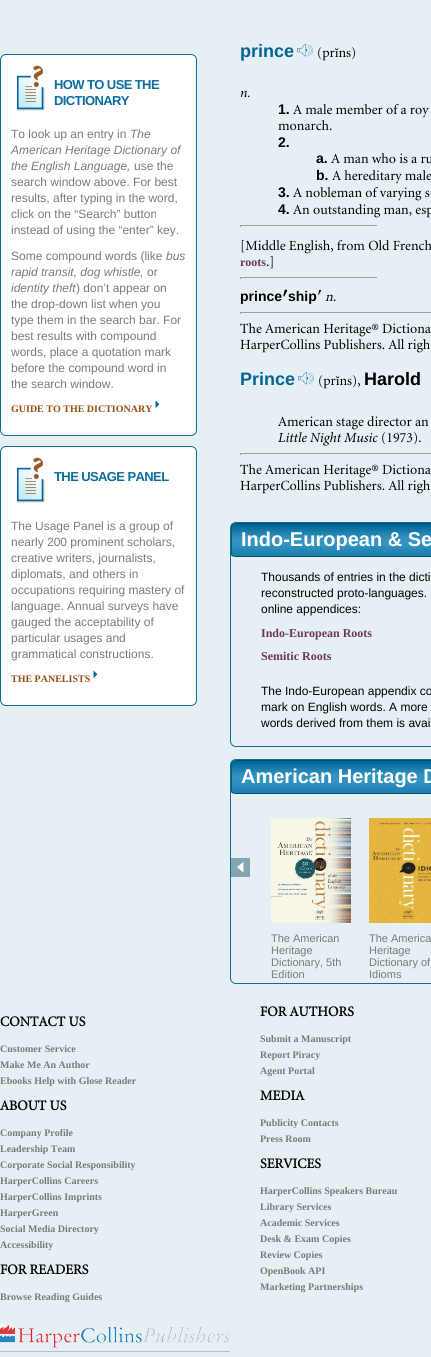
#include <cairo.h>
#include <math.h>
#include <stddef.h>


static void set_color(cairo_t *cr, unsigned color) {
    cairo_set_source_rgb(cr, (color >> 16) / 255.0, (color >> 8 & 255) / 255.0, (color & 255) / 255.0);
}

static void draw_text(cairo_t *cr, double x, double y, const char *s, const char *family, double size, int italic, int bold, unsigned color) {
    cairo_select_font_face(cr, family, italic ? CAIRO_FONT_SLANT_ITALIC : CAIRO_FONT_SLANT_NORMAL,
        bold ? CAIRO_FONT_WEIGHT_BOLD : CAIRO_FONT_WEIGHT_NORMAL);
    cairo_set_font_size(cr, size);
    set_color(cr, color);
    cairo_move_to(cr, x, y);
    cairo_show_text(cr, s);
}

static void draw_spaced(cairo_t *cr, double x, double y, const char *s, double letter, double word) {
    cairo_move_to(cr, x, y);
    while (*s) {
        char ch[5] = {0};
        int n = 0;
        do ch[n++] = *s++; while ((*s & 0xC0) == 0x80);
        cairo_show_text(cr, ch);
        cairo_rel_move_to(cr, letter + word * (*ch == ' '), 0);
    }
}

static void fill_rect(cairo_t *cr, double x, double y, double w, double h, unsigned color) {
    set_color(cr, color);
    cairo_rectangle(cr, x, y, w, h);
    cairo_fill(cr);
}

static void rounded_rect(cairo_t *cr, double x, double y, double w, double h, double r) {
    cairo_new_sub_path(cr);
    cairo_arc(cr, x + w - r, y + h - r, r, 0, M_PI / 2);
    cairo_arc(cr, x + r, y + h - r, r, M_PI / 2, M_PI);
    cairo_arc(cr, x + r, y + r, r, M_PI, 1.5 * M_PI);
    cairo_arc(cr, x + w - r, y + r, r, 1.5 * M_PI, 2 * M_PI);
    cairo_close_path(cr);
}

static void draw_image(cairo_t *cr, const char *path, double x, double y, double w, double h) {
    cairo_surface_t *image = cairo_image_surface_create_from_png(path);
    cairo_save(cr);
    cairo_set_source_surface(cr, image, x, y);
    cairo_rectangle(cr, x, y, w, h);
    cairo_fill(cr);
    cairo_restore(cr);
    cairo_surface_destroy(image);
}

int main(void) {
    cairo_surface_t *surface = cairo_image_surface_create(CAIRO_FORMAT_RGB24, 431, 1357);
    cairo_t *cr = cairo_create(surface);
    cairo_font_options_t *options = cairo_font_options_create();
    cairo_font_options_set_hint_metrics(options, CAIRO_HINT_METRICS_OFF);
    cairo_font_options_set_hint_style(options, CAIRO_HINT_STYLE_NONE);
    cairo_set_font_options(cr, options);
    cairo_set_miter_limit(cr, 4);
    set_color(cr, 0xE5EFF4);
    cairo_paint(cr);
    set_color(cr, 0xFFFFFF);
    rounded_rect(cr, 0.5, 54.5, 196, 381, 5.5);
    cairo_fill_preserve(cr);
    set_color(cr, 0x096D9D);
    cairo_set_line_width(cr, 1);
    cairo_stroke(cr);
    draw_image(cr, "assets/img1.png", 16, 65, 30, 46);
    cairo_select_font_face(cr, "Liberation Sans", CAIRO_FONT_SLANT_NORMAL, CAIRO_FONT_WEIGHT_BOLD);
    cairo_set_font_size(cr, 13);
    draw_spaced(cr, 54, 89, "HOW TO USE THE", -0.6, 0);
    draw_spaced(cr, 54, 105, "DICTIONARY", -0.6, 0);
    draw_text(cr, 11, 138, "To look up an entry in", "Liberation Sans", 12, 0, 0, 0x7A7A7A);
    draw_text(cr, 130, 138, "The", "Liberation Sans", 12, 1, 0, 0x7A7A7A);
    draw_text(cr, 11, 154, "American Heritage Dictionary of", "Liberation Sans", 12, 1, 0, 0x7A7A7A);
    draw_text(cr, 11, 170, "the English Language,", "Liberation Sans", 12, 1, 0, 0x7A7A7A);
    draw_text(cr, 134, 170, "use the", "Liberation Sans", 12, 0, 0, 0x7A7A7A);
    draw_text(cr, 11, 186, "search window above. For best", "Liberation Sans", 12, 0, 0, 0x7A7A7A);
    draw_text(cr, 11, 202, "results, after typing in the word,", "Liberation Sans", 12, 0, 0, 0x7A7A7A);
    draw_text(cr, 11, 218, "click on the “Search” button", "Liberation Sans", 12, 0, 0, 0x7A7A7A);
    draw_text(cr, 11, 234, "instead of using the “enter” key.", "Liberation Sans", 12, 0, 0, 0x7A7A7A);
    draw_text(cr, 11, 260, "Some compound words (like", "Liberation Sans", 12, 0, 0, 0x7A7A7A);
    draw_text(cr, 166, 260, "bus", "Liberation Sans", 12, 1, 0, 0x7A7A7A);
    draw_text(cr, 11, 276, "rapid transit, dog whistle,", "Liberation Sans", 12, 1, 0, 0x7A7A7A);
    draw_text(cr, 147, 276, "or", "Liberation Sans", 12, 0, 0, 0x7A7A7A);
    draw_text(cr, 11, 292, "identity theft", "Liberation Sans", 12, 1, 0, 0x7A7A7A);
    draw_text(cr, 76, 292, ") don’t appear on", "Liberation Sans", 12, 0, 0, 0x7A7A7A);
    draw_text(cr, 11, 308, "the drop-down list when you", "Liberation Sans", 12, 0, 0, 0x7A7A7A);
    draw_text(cr, 11, 324, "type them in the search bar. For", "Liberation Sans", 12, 0, 0, 0x7A7A7A);
    draw_text(cr, 11, 340, "best results with compound", "Liberation Sans", 12, 0, 0, 0x7A7A7A);
    draw_text(cr, 11, 356, "words, place a quotation mark", "Liberation Sans", 12, 0, 0, 0x7A7A7A);
    draw_text(cr, 11, 372, "before the compound word in", "Liberation Sans", 12, 0, 0, 0x7A7A7A);
    draw_text(cr, 11, 388, "the search window.", "Liberation Sans", 12, 0, 0, 0x7A7A7A);
    draw_image(cr, "assets/img2.png", 155, 400, 5, 8);
    draw_text(cr, 11, 412, "GUIDE TO THE DICTIONARY", "Liberation Serif", 10, 0, 1, 0x945012);
    set_color(cr, 0xFFFFFF);
    rounded_rect(cr, 0.5, 446.5, 196, 259, 5.5);
    cairo_fill_preserve(cr);
    set_color(cr, 0x096D9D);
    cairo_stroke(cr);
    draw_image(cr, "assets/img1.png", 16, 457, 30, 46);
    cairo_select_font_face(cr, "Liberation Sans", CAIRO_FONT_SLANT_NORMAL, CAIRO_FONT_WEIGHT_BOLD);
    cairo_set_font_size(cr, 13);
    draw_spaced(cr, 54, 481, "THE USAGE PANEL", -0.6, 0);
    draw_text(cr, 11, 530, "The Usage Panel is a group of", "Liberation Sans", 12, 0, 0, 0x7A7A7A);
    draw_text(cr, 11, 546, "nearly 200 prominent scholars,", "Liberation Sans", 12, 0, 0, 0x7A7A7A);
    draw_text(cr, 11, 562, "creative writers, journalists,", "Liberation Sans", 12, 0, 0, 0x7A7A7A);
    draw_text(cr, 11, 578, "diplomats, and others in", "Liberation Sans", 12, 0, 0, 0x7A7A7A);
    draw_text(cr, 11, 594, "occupations requiring mastery of", "Liberation Sans", 12, 0, 0, 0x7A7A7A);
    draw_text(cr, 11, 610, "language. Annual surveys have", "Liberation Sans", 12, 0, 0, 0x7A7A7A);
    draw_text(cr, 11, 626, "gauged the acceptability of", "Liberation Sans", 12, 0, 0, 0x7A7A7A);
    draw_text(cr, 11, 642, "particular usages and", "Liberation Sans", 12, 0, 0, 0x7A7A7A);
    draw_text(cr, 11, 658, "grammatical constructions.", "Liberation Sans", 12, 0, 0, 0x7A7A7A);
    draw_image(cr, "assets/img2.png", 93, 670, 5, 8);
    draw_text(cr, 11, 682, "THE PANELISTS", "Liberation Serif", 10, 0, 1, 0x945012);
    draw_text(cr, 240, 57, "prince", "Liberation Sans", 18, 0, 1, 0x006595);
    draw_image(cr, "assets/img3.png", 297, 44, 16, 13);
    draw_text(cr, 317, 57, "(prĭns)", "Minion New", 14, 0, 0, 0x000000);
    draw_image(cr, "assets/img4.png", 240, 90, 10, 8);
    draw_text(cr, 278, 114, "1.", "Liberation Sans", 14, 0, 1, 0x000000);
    draw_text(cr, 293, 114, "A male member of a roy", "Minion New", 14, 0, 0, 0x000000);
    draw_text(cr, 278, 130, "monarch.", "Minion New", 14, 0, 0, 0x000000);
    draw_text(cr, 278, 147, "2.", "Liberation Sans", 14, 0, 1, 0x000000);
    draw_text(cr, 316, 163, "a.", "Liberation Sans", 14, 0, 1, 0x000000);
    draw_text(cr, 331, 163, "A man who is a ru", "Minion New", 14, 0, 0, 0x000000);
    draw_text(cr, 316, 180, "b.", "Liberation Sans", 14, 0, 1, 0x000000);
    draw_text(cr, 332, 180, "A hereditary male", "Minion New", 14, 0, 0, 0x000000);
    draw_text(cr, 278, 197, "3.", "Liberation Sans", 14, 0, 1, 0x000000);
    draw_text(cr, 293, 197, "A nobleman of varying s", "Minion New", 14, 0, 0, 0x000000);
    draw_text(cr, 278, 214, "4.", "Liberation Sans", 14, 0, 1, 0x000000);
    draw_text(cr, 293, 214, "An outstanding man, esp", "Minion New", 14, 0, 0, 0x000000);
    fill_rect(cr, 240, 225, 138, 1, 0x9F9F9F);
    fill_rect(cr, 377, 225, 1, 2, 0xEEEEEE);
    fill_rect(cr, 240, 226, 138, 1, 0xEEEEEE);
    fill_rect(cr, 240, 225, 1, 2, 0x9F9F9F);
    draw_text(cr, 240, 250, "[Middle English, from Old French", "Minion New", 14, 0, 0, 0x000000);
    draw_text(cr, 240, 266, "roots", "Liberation Serif", 12, 0, 1, 0x6D3757);
    draw_text(cr, 266, 266, ".]", "Minion New", 14, 0, 0, 0x000000);
    fill_rect(cr, 240, 277, 138, 1, 0x9F9F9F);
    fill_rect(cr, 377, 277, 1, 2, 0xEEEEEE);
    fill_rect(cr, 240, 278, 138, 1, 0xEEEEEE);
    fill_rect(cr, 240, 277, 1, 2, 0x9F9F9F);
    draw_text(cr, 240, 301, "prince", "Liberation Sans", 14, 0, 1, 0x000000);
    draw_image(cr, "assets/img5.png", 283, 289, 5, 8);
    draw_text(cr, 288, 301, "ship", "Liberation Sans", 14, 0, 1, 0x000000);
    draw_image(cr, "assets/img6.png", 318, 290, 4, 5);
    draw_text(cr, 325, 301, "n.", "Minion New", 14, 1, 0, 0x000000);
    fill_rect(cr, 240, 312, 191, 1, 0x9F9F9F);
    fill_rect(cr, 240, 313, 191, 1, 0xEEEEEE);
    fill_rect(cr, 240, 312, 1, 2, 0x9F9F9F);
    draw_text(cr, 240, 333, "The American Heritage® Dictiona", "Minion New", 14, 0, 0, 0x000000);
    draw_text(cr, 240, 349, "HarperCollins Publishers. All righ", "Minion New", 14, 0, 0, 0x000000);
    draw_text(cr, 240, 385, "Prince", "Liberation Sans", 18, 0, 1, 0x006595);
    draw_image(cr, "assets/img3.png", 298, 372, 16, 13);
    draw_text(cr, 318, 385, "(prĭns),", "Minion New", 14, 0, 0, 0x000000);
    draw_text(cr, 364, 385, "Harold", "Liberation Sans", 18, 0, 1, 0x000000);
    draw_text(cr, 278, 426, "American stage director an", "Minion New", 14, 0, 0, 0x000000);
    draw_image(cr, "assets/img7.png", 278, 432, 100, 14);
    draw_text(cr, 381, 442, "(1973).", "Minion New", 14, 0, 0, 0x000000);
    fill_rect(cr, 240, 453, 191, 1, 0x9F9F9F);
    fill_rect(cr, 240, 454, 191, 1, 0xEEEEEE);
    fill_rect(cr, 240, 453, 1, 2, 0x9F9F9F);
    draw_text(cr, 240, 474, "The American Heritage® Dictiona", "Minion New", 14, 0, 0, 0x000000);
    draw_text(cr, 240, 490, "HarperCollins Publishers. All righ", "Minion New", 14, 0, 0, 0x000000);
    draw_image(cr, "assets/img8.png", 231, 523, 200, 34);
    rounded_rect(cr, 230.5, 522.5, 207, 224, 5.5);
    set_color(cr, 0x096D9D);
    cairo_stroke(cr);
    draw_text(cr, 241, 546, "Indo-European & Se", "Liberation Sans", 20, 0, 1, 0xFFFFFF);
    draw_text(cr, 261, 581, "Thousands of entries in the dicti", "Liberation Sans", 12, 0, 0, 0x000000);
    draw_text(cr, 261, 597, "reconstructed proto-languages.", "Liberation Sans", 12, 0, 0, 0x000000);
    draw_text(cr, 261, 613, "online appendices:", "Liberation Sans", 12, 0, 0, 0x000000);
    draw_text(cr, 261, 637, "Indo-European Roots", "Liberation Serif", 12, 0, 1, 0x6D3757);
    draw_text(cr, 261, 660, "Semitic Roots", "Liberation Serif", 12, 0, 1, 0x6D3757);
    draw_text(cr, 261, 695, "The Indo-European appendix co", "Liberation Sans", 12, 0, 0, 0x000000);
    draw_text(cr, 261, 711, "mark on English words. A more", "Liberation Sans", 12, 0, 0, 0x000000);
    draw_text(cr, 261, 727, "words derived from them is avai", "Liberation Sans", 12, 0, 0, 0x000000);
    draw_image(cr, "assets/img8.png", 231, 760, 200, 34);
    rounded_rect(cr, 230.5, 759.5, 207, 224, 5.5);
    set_color(cr, 0x096D9D);
    cairo_stroke(cr);
    draw_text(cr, 241, 783, "American Heritage D", "Liberation Sans", 20, 0, 1, 0xFFFFFF);
    draw_image(cr, "assets/img9.png", 231, 858, 19, 19);
    draw_image(cr, "assets/img10.png", 271, 818, 80, 105);
    draw_text(cr, 271, 942, "The American", "Liberation Sans", 11, 0, 0, 0x7A7A7A);
    draw_text(cr, 271, 954, "Heritage", "Liberation Sans", 11, 0, 0, 0x7A7A7A);
    draw_text(cr, 271, 966, "Dictionary, 5th", "Liberation Sans", 11, 0, 0, 0x7A7A7A);
    draw_text(cr, 271, 978, "Edition", "Liberation Sans", 11, 0, 0, 0x7A7A7A);
    draw_image(cr, "assets/img11.png", 369, 818, 62, 105);
    draw_text(cr, 369, 942, "The America", "Liberation Sans", 11, 0, 0, 0x7A7A7A);
    draw_text(cr, 369, 954, "Heritage", "Liberation Sans", 11, 0, 0, 0x7A7A7A);
    draw_text(cr, 369, 966, "Dictionary of", "Liberation Sans", 11, 0, 0, 0x7A7A7A);
    draw_text(cr, 369, 978, "Idioms", "Liberation Sans", 11, 0, 0, 0x7A7A7A);
    draw_text(cr, 260, 1016, "FOR AUTHORS", "Minion New", 14, 0, 1, 0x000000);
    draw_text(cr, 0, 1026, "CONTACT US", "Minion New", 14, 0, 1, 0x000000);
    draw_text(cr, 260, 1042, "Submit a Manuscript", "Liberation Serif", 10, 0, 1, 0x7A7A7A);
    draw_text(cr, 0, 1052, "Customer Service", "Liberation Serif", 10, 0, 1, 0x7A7A7A);
    draw_text(cr, 260, 1058, "Report Piracy", "Liberation Serif", 10, 0, 1, 0x7A7A7A);
    draw_text(cr, 0, 1068, "Make Me An Author", "Liberation Serif", 10, 0, 1, 0x7A7A7A);
    draw_text(cr, 260, 1074, "Agent Portal", "Liberation Serif", 10, 0, 1, 0x7A7A7A);
    draw_text(cr, 0, 1084, "Ebooks Help with Glose Reader", "Liberation Serif", 10, 0, 1, 0x7A7A7A);
    draw_text(cr, 260, 1100, "MEDIA", "Minion New", 14, 0, 1, 0x000000);
    draw_text(cr, 0, 1110, "ABOUT US", "Minion New", 14, 0, 1, 0x000000);
    draw_text(cr, 260, 1126, "Publicity Contacts", "Liberation Serif", 10, 0, 1, 0x7A7A7A);
    draw_text(cr, 0, 1136, "Company Profile", "Liberation Serif", 10, 0, 1, 0x7A7A7A);
    draw_text(cr, 260, 1142, "Press Room", "Liberation Serif", 10, 0, 1, 0x7A7A7A);
    draw_text(cr, 0, 1152, "Leadership Team", "Liberation Serif", 10, 0, 1, 0x7A7A7A);
    draw_text(cr, 0, 1168, "Corporate Social Responsibility", "Liberation Serif", 10, 0, 1, 0x7A7A7A);
    draw_text(cr, 260, 1168, "SERVICES", "Minion New", 14, 0, 1, 0x000000);
    draw_text(cr, 0, 1184, "HarperCollins Careers", "Liberation Serif", 10, 0, 1, 0x7A7A7A);
    draw_text(cr, 260, 1194, "HarperCollins Speakers Bureau", "Liberation Serif", 10, 0, 1, 0x7A7A7A);
    draw_text(cr, 0, 1200, "HarperCollins Imprints", "Liberation Serif", 10, 0, 1, 0x7A7A7A);
    draw_text(cr, 260, 1210, "Library Services", "Liberation Serif", 10, 0, 1, 0x7A7A7A);
    draw_text(cr, 0, 1216, "HarperGreen", "Liberation Serif", 10, 0, 1, 0x7A7A7A);
    draw_text(cr, 260, 1226, "Academic Services", "Liberation Serif", 10, 0, 1, 0x7A7A7A);
    draw_text(cr, 0, 1232, "Social Media Directory", "Liberation Serif", 10, 0, 1, 0x7A7A7A);
    draw_text(cr, 260, 1242, "Desk & Exam Copies", "Liberation Serif", 10, 0, 1, 0x7A7A7A);
    draw_text(cr, 0, 1248, "Accessibility", "Liberation Serif", 10, 0, 1, 0x7A7A7A);
    draw_text(cr, 260, 1258, "Review Copies", "Liberation Serif", 10, 0, 1, 0x7A7A7A);
    draw_text(cr, 0, 1274, "FOR READERS", "Minion New", 14, 0, 1, 0x000000);
    draw_text(cr, 260, 1274, "OpenBook API", "Liberation Serif", 10, 0, 1, 0x7A7A7A);
    draw_text(cr, 260, 1290, "Marketing Partnerships", "Liberation Serif", 10, 0, 1, 0x7A7A7A);
    draw_text(cr, 0, 1300, "Browse Reading Guides", "Liberation Serif", 10, 0, 1, 0x7A7A7A);
    draw_image(cr, "assets/img12.png", 0, 1324, 230, 28);
    cairo_surface_write_to_png(surface, "output.png");
    cairo_font_options_destroy(options);
    cairo_destroy(cr);
    cairo_surface_destroy(surface);
    return 0;
}
